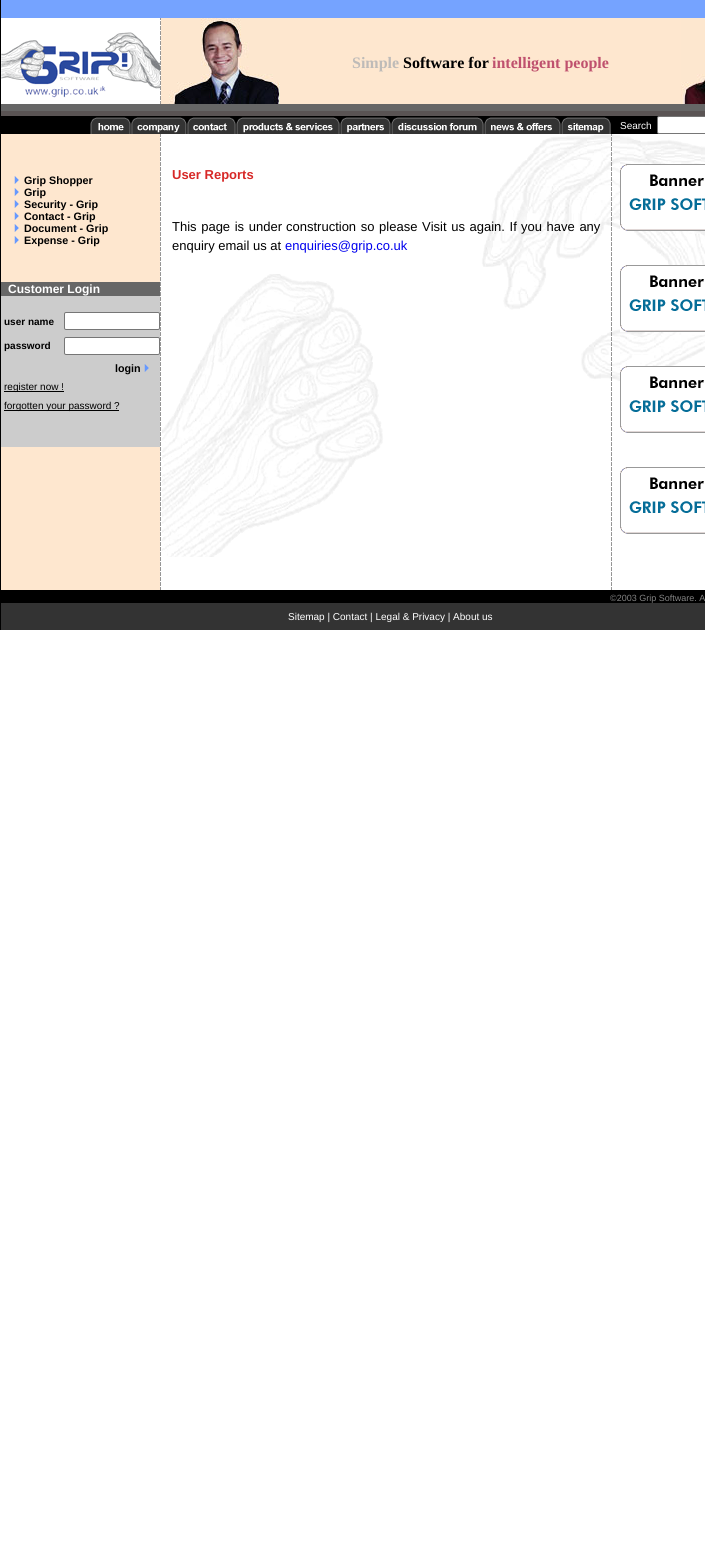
#include <cairo.h>
#include <math.h>
#include <stddef.h>


static void set_color(cairo_t *cr, unsigned color) {
    cairo_set_source_rgb(cr, (color >> 16) / 255.0, (color >> 8 & 255) / 255.0, (color & 255) / 255.0);
}

static void draw_text(cairo_t *cr, double x, double y, const char *s, const char *family, double size, int italic, int bold, unsigned color) {
    cairo_select_font_face(cr, family, italic ? CAIRO_FONT_SLANT_ITALIC : CAIRO_FONT_SLANT_NORMAL,
        bold ? CAIRO_FONT_WEIGHT_BOLD : CAIRO_FONT_WEIGHT_NORMAL);
    cairo_set_font_size(cr, size);
    set_color(cr, color);
    cairo_move_to(cr, x, y);
    cairo_show_text(cr, s);
}

static void draw_spaced(cairo_t *cr, double x, double y, const char *s, double letter, double word) {
    cairo_move_to(cr, x, y);
    while (*s) {
        char ch[5] = {0};
        int n = 0;
        do ch[n++] = *s++; while ((*s & 0xC0) == 0x80);
        cairo_show_text(cr, ch);
        cairo_rel_move_to(cr, letter + word * (*ch == ' '), 0);
    }
}

static void fill_rect(cairo_t *cr, double x, double y, double w, double h, unsigned color) {
    set_color(cr, color);
    cairo_rectangle(cr, x, y, w, h);
    cairo_fill(cr);
}

static void rounded_rect(cairo_t *cr, double x, double y, double w, double h, double r) {
    cairo_new_sub_path(cr);
    cairo_arc(cr, x + w - r, y + h - r, r, 0, M_PI / 2);
    cairo_arc(cr, x + r, y + h - r, r, M_PI / 2, M_PI);
    cairo_arc(cr, x + r, y + r, r, M_PI, 1.5 * M_PI);
    cairo_arc(cr, x + w - r, y + r, r, 1.5 * M_PI, 2 * M_PI);
    cairo_close_path(cr);
}

static void draw_image(cairo_t *cr, const char *path, double x, double y, double w, double h) {
    cairo_surface_t *image = cairo_image_surface_create_from_png(path);
    cairo_save(cr);
    cairo_set_source_surface(cr, image, x, y);
    cairo_rectangle(cr, x, y, w, h);
    cairo_fill(cr);
    cairo_restore(cr);
    cairo_surface_destroy(image);
}

int main(void) {
    cairo_surface_t *surface = cairo_image_surface_create(CAIRO_FORMAT_RGB24, 705, 1554);
    cairo_t *cr = cairo_create(surface);
    cairo_font_options_t *options = cairo_font_options_create();
    cairo_font_options_set_hint_metrics(options, CAIRO_HINT_METRICS_OFF);
    cairo_font_options_set_hint_style(options, CAIRO_HINT_STYLE_NONE);
    cairo_set_font_options(cr, options);
    cairo_set_miter_limit(cr, 4);
    set_color(cr, 0xFFFFFF);
    cairo_paint(cr);
    fill_rect(cr, 0, 0, 1, 630, 0x000000);
    fill_rect(cr, 1, 0, 704, 18, 0x75A3FF);
    draw_image(cr, "assets/img1.png", 1, 32, 159, 66);
    draw_image(cr, "assets/img2.png", 160, 18, 1, 86);
    draw_image(cr, "assets/img3.png", 161, 18, 119, 86);
    fill_rect(cr, 280, 18, 401, 86, 0xFEE7CF);
    draw_image(cr, "assets/img4.png", 681, 18, 24, 86);
    draw_text(cr, 352, 68, "Simple", "Liberation Serif", 16, 0, 1, 0xBEBBB8);
    draw_text(cr, 403, 68, "Software for", "Liberation Serif", 16, 0, 1, 0x000000);
    draw_text(cr, 492, 68, "intelligent people", "Liberation Serif", 16, 0, 1, 0xBF516E);
    fill_rect(cr, 1, 104, 704, 7, 0x666666);
    fill_rect(cr, 1, 111, 704, 5, 0x5A5454);
    fill_rect(cr, 1, 116, 658, 18, 0x000000);
    draw_image(cr, "assets/img5.png", 90, 117, 41, 17);
    draw_image(cr, "assets/img6.png", 131, 117, 56, 17);
    draw_image(cr, "assets/img7.png", 187, 117, 49, 17);
    draw_image(cr, "assets/img8.png", 236, 117, 104, 17);
    draw_image(cr, "assets/img9.png", 340, 117, 51, 17);
    draw_image(cr, "assets/img10.png", 391, 117, 93, 17);
    draw_image(cr, "assets/img11.png", 484, 117, 77, 17);
    draw_image(cr, "assets/img12.png", 561, 117, 50, 17);
    draw_text(cr, 620, 129, "Search", "Liberation Sans", 10, 0, 0, 0xFFFFFF);
    rounded_rect(cr, 657.5, 116.5, 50, 17, 1.5);
    cairo_fill_preserve(cr);
    set_color(cr, 0x767676);
    cairo_set_line_width(cr, 1);
    cairo_stroke(cr);
    fill_rect(cr, 1, 134, 159, 456, 0xFEE7CF);
    draw_image(cr, "assets/img13.png", 14, 176, 5, 8);
    draw_text(cr, 24, 184, "Grip Shopper", "Liberation Sans", 10.75, 0, 1, 0x000000);
    draw_image(cr, "assets/img13.png", 14, 188, 5, 8);
    draw_text(cr, 24, 196, "Grip", "Liberation Sans", 10.75, 0, 1, 0x000000);
    draw_image(cr, "assets/img13.png", 14, 200, 5, 8);
    draw_text(cr, 24, 208, "Security - Grip", "Liberation Sans", 10.75, 0, 1, 0x000000);
    draw_image(cr, "assets/img13.png", 14, 212, 5, 8);
    draw_text(cr, 24, 220, "Contact - Grip", "Liberation Sans", 10.75, 0, 1, 0x000000);
    draw_image(cr, "assets/img13.png", 14, 224, 5, 8);
    draw_text(cr, 24, 232, "Document - Grip", "Liberation Sans", 10.75, 0, 1, 0x000000);
    draw_image(cr, "assets/img13.png", 14, 236, 5, 8);
    draw_text(cr, 24, 244, "Expense - Grip", "Liberation Sans", 10.75, 0, 1, 0x000000);
    fill_rect(cr, 1, 282, 159, 14, 0x666666);
    draw_text(cr, 8, 293, "Customer Login", "Liberation Sans", 12, 0, 1, 0xFFFFFF);
    fill_rect(cr, 1, 296, 159, 151, 0xCCCCCC);
    draw_text(cr, 4, 325, "user name", "Liberation Sans", 10, 0, 1, 0x000000);
    set_color(cr, 0xFFFFFF);
    rounded_rect(cr, 64.5, 312.5, 95, 17, 1.5);
    cairo_fill_preserve(cr);
    set_color(cr, 0x767676);
    cairo_stroke(cr);
    draw_text(cr, 4, 349, "password", "Liberation Sans", 10, 0, 1, 0x000000);
    set_color(cr, 0xFFFFFF);
    rounded_rect(cr, 64.5, 337.5, 95, 17, 1.5);
    cairo_fill_preserve(cr);
    set_color(cr, 0x767676);
    cairo_stroke(cr);
    draw_text(cr, 115, 372, "login", "Liberation Sans", 10.75, 0, 1, 0x000000);
    draw_image(cr, "assets/img14.png", 144, 364, 5, 8);
    fill_rect(cr, 4, 391, 60, 1, 0x000000);
    draw_text(cr, 4, 390, "register now !", "Liberation Sans", 10, 0, 0, 0x000000);
    fill_rect(cr, 4, 410, 115, 1, 0x000000);
    draw_text(cr, 4, 409, "forgotten your password ?", "Liberation Sans", 10, 0, 0, 0x000000);
    draw_image(cr, "assets/img15.png", 160, 134, 1, 456);
    draw_image(cr, "assets/img16.png", 160, 136, 1, 2);
    draw_image(cr, "assets/img17.png", 162, 134, 543, 423);
    draw_text(cr, 172, 179, "User Reports", "Liberation Sans", 13, 0, 1, 0xD72827);
    cairo_select_font_face(cr, "Liberation Sans", CAIRO_FONT_SLANT_NORMAL, CAIRO_FONT_WEIGHT_NORMAL);
    set_color(cr, 0x000000);
    draw_spaced(cr, 172, 231, "This page is under", 0, 1);
    draw_spaced(cr, 286, 231, "construction so please Visit us again. If", 0, 1);
    draw_spaced(cr, 521, 231, "you have any", 0, 1);
    draw_text(cr, 172, 250, "enquiry email us at", "Liberation Sans", 13, 0, 0, 0x000000);
    draw_text(cr, 285, 250, "enquiries@grip.co.uk", "Liberation Sans", 13, 0, 0, 0x0000EE);
    draw_image(cr, "assets/img15.png", 611, 134, 1, 456);
    draw_image(cr, "assets/img18.png", 620, 164, 85, 67);
    draw_image(cr, "assets/img18.png", 620, 265, 85, 67);
    draw_image(cr, "assets/img18.png", 620, 366, 85, 67);
    draw_image(cr, "assets/img18.png", 620, 467, 85, 67);
    fill_rect(cr, 1, 590, 704, 13, 0x000000);
    draw_text(cr, 610, 601, "©2003 Grip Software. A", "Liberation Sans", 9, 0, 0, 0x838383);
    fill_rect(cr, 1, 603, 704, 27, 0x333333);
    draw_text(cr, 288, 620, "Sitemap | Contact | Legal & Privacy | About us", "Liberation Sans", 10, 0, 0, 0xFFFFFF);
    cairo_surface_write_to_png(surface, "output.png");
    cairo_font_options_destroy(options);
    cairo_destroy(cr);
    cairo_surface_destroy(surface);
    return 0;
}
